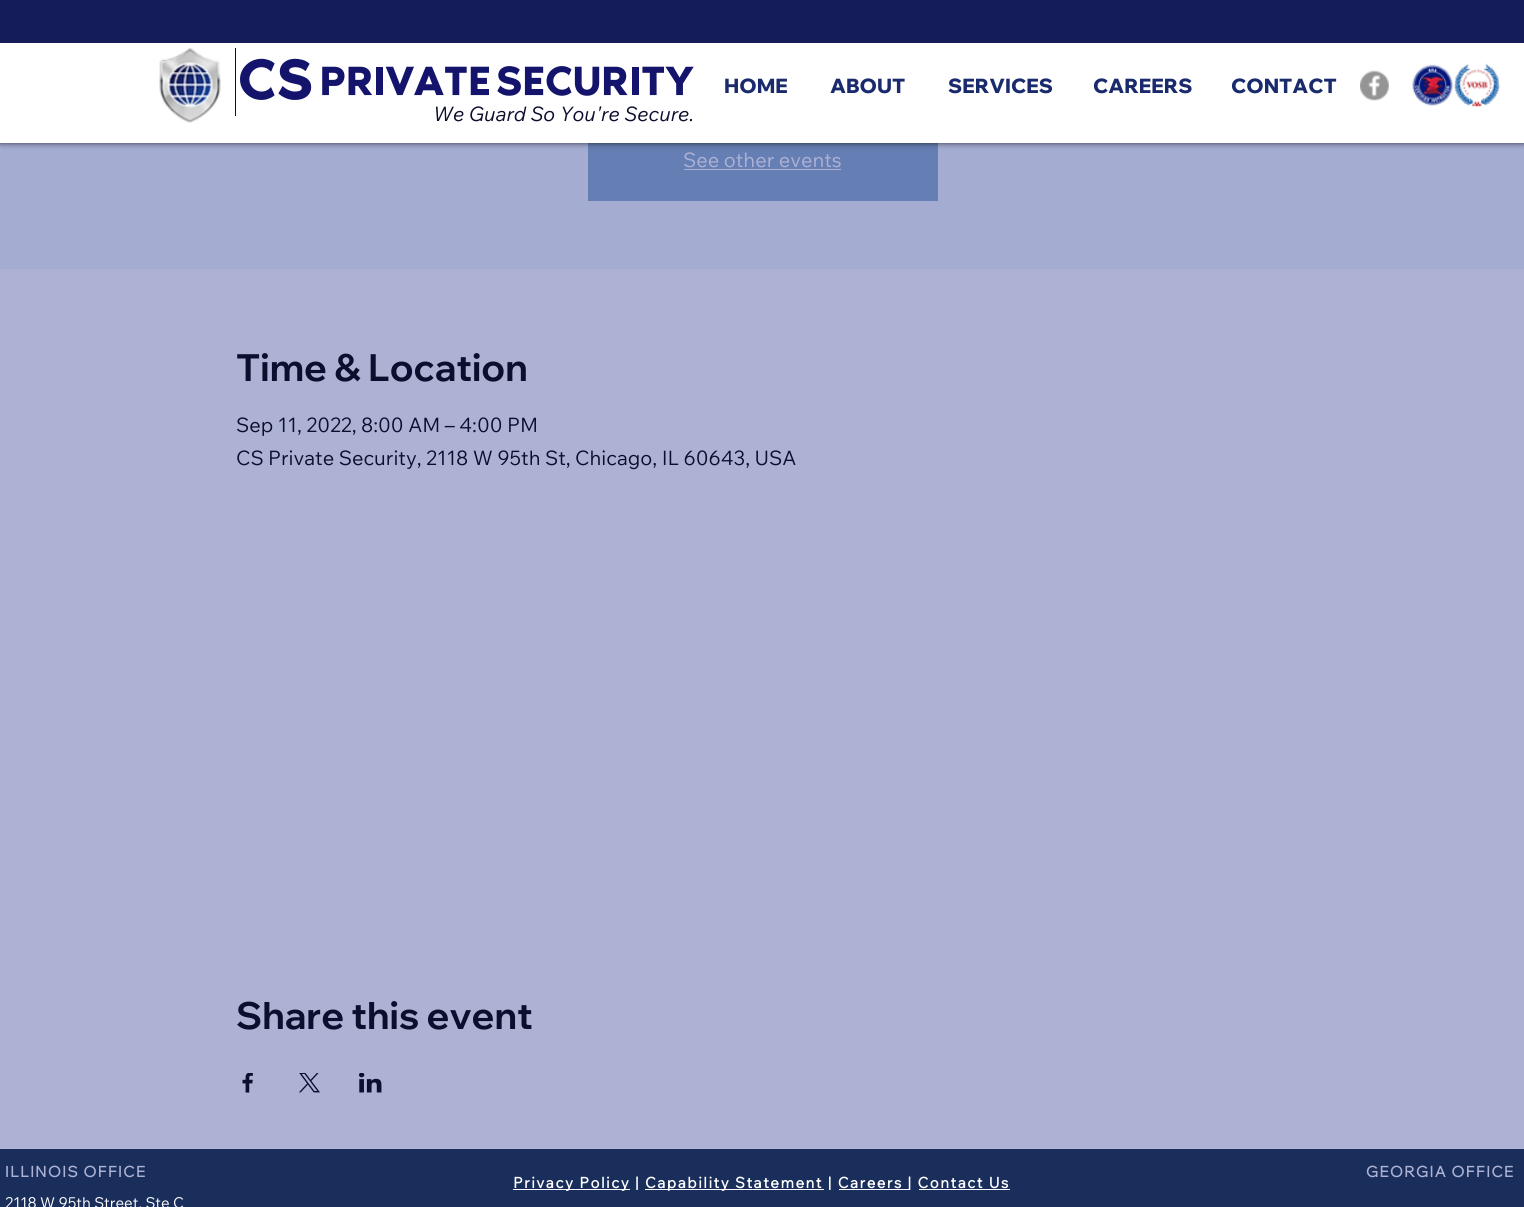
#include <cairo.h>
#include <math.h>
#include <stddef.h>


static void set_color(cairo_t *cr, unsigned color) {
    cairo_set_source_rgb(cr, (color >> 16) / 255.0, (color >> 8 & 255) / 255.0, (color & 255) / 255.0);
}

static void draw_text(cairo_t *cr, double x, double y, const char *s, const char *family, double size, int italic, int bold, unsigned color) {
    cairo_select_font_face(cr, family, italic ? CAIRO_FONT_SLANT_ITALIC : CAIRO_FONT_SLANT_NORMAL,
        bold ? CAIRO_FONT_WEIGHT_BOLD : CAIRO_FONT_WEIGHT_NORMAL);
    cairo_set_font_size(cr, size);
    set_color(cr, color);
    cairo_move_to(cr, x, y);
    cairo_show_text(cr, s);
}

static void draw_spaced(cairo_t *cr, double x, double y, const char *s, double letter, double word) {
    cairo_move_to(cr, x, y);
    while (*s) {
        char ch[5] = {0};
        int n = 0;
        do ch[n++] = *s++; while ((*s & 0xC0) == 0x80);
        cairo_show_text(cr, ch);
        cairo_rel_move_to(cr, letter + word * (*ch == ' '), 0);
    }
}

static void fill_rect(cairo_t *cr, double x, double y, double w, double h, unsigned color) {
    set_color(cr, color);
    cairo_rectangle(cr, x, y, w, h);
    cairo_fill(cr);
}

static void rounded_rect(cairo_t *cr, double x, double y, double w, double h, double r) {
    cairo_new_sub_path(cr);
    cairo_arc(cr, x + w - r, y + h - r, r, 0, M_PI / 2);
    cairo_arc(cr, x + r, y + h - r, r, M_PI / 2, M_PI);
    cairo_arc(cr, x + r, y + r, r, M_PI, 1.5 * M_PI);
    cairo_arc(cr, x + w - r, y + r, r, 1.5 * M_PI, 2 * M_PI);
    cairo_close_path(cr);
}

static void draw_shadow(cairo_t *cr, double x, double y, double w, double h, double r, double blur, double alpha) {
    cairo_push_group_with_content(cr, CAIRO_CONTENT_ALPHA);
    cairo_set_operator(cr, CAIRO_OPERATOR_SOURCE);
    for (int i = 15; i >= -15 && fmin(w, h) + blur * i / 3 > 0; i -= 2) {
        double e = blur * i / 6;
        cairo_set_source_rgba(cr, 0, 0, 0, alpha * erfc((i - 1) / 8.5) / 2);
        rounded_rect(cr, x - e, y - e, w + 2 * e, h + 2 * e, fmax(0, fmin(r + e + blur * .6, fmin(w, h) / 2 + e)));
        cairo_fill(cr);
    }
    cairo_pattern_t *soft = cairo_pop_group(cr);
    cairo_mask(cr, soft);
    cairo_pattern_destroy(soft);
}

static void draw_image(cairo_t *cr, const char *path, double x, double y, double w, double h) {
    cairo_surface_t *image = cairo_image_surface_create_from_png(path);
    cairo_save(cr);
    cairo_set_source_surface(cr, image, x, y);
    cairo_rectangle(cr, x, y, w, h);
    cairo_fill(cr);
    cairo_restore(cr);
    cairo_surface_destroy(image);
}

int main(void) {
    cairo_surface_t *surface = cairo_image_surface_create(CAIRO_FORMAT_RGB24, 1524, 1207);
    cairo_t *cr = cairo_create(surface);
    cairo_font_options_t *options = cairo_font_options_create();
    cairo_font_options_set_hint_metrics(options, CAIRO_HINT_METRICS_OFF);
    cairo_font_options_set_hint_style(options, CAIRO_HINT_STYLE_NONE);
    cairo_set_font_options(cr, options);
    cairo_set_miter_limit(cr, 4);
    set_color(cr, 0xADB2D5);
    cairo_paint(cr);
    fill_rect(cr, 0, 143, 1524, 126, 0xA5ACD2);
    fill_rect(cr, 588, 143, 350, 58, 0x657EB3);
    set_color(cr, 0x000000);
    draw_shadow(cr, 0, 0, 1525, 143, 0, 3, 0.7);
    fill_rect(cr, 0, 43, 1524, 100, 0xFFFFFF);
    fill_rect(cr, 0, 0, 1524, 43, 0x151D59);
    draw_image(cr, "assets/img1.png", 159, 48, 62, 75);
    fill_rect(cr, 235, 48, 1, 68, 0x0B0F2D);
    draw_image(cr, "assets/img2.png", 240, 58, 454, 42);
    draw_text(cr, 724, 93, "HOME", "Wix Madefor Display ExtraBold", 20, 0, 0, 0x1A2B6D);
    draw_text(cr, 830, 93, "ABOUT", "Wix Madefor Display ExtraBold", 20, 0, 0, 0x1A2B6D);
    draw_text(cr, 948, 93, "SERVICES", "Wix Madefor Display ExtraBold", 20, 0, 0, 0x1A2B6D);
    draw_text(cr, 1093, 93, "CAREERS", "Wix Madefor Display ExtraBold", 20, 0, 0, 0x1A2B6D);
    draw_text(cr, 1231, 93, "CONTACT", "Wix Madefor Display ExtraBold", 20, 0, 0, 0x1A2B6D);
    draw_image(cr, "assets/img3.png", 1360, 70, 29, 31);
    draw_image(cr, "assets/img4.png", 1412, 64, 41, 42);
    draw_image(cr, "assets/img5.png", 1453, 63, 47, 44);
    draw_text(cr, 433, 121, "We Guard So You're Secure.", "Wix Madefor Text", 20, 1, 0, 0x0B0F2D);
    draw_text(cr, 683, 167, "See other events", "Wix Madefor Text", 20, 0, 0, 0xADB2D5);
    fill_rect(cr, 684, 169, 157, 1, 0xADB2D5);
    draw_text(cr, 236, 381, "Time & Location", "Wix Madefor Display", 37.5, 0, 1, 0x0B0F2D);
    draw_text(cr, 236, 432, "Sep 11, 2022, 8:00 AM – 4:00 PM", "Wix Madefor Text", 20, 0, 0, 0x0B0F2D);
    draw_text(cr, 236, 465, "CS Private Security, 2118 W 95th St, Chicago, IL 60643, USA", "Wix Madefor Text", 20, 0, 0, 0x0B0F2D);
    draw_text(cr, 236, 1029, "Share this event", "Wix Madefor Display", 37.5, 0, 1, 0x0B0F2D);
    draw_image(cr, "assets/img6.png", 242, 1073, 11, 20);
    draw_image(cr, "assets/img7.png", 299, 1073, 21, 20);
    draw_image(cr, "assets/img8.png", 359, 1073, 23, 20);
    draw_image(cr, "assets/img9.png", 0, 1148, 1524, 1);
    fill_rect(cr, 0, 1149, 1524, 58, 0x1A2E5B);
    cairo_select_font_face(cr, "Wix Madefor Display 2", CAIRO_FONT_SLANT_NORMAL, CAIRO_FONT_WEIGHT_BOLD);
    cairo_set_font_size(cr, 15);
    set_color(cr, 0xADB2D5);
    draw_spaced(cr, 5, 1177, "ILLINOIS OFFICE", 1.5, 0);
    draw_text(cr, 5, 1208, "2118 W 95th Street, Ste C", "Wix Madefor Text", 15, 0, 0, 0xFFFFFF);
    cairo_select_font_face(cr, "Wix Madefor Display 2", CAIRO_FONT_SLANT_NORMAL, CAIRO_FONT_WEIGHT_BOLD);
    set_color(cr, 0xADB2D5);
    draw_spaced(cr, 1366, 1177, "GEORGIA OFFICE", 1.5, 0);
    fill_rect(cr, 513, 1189, 117, 1, 0xFFFFFF);
    cairo_select_font_face(cr, "Wix Madefor Text", CAIRO_FONT_SLANT_NORMAL, CAIRO_FONT_WEIGHT_BOLD);
    draw_spaced(cr, 513, 1188, "Privacy Policy |", 1.45, 0);
    fill_rect(cr, 645, 1189, 179, 1, 0xFFFFFF);
    draw_spaced(cr, 645, 1188, "Capability Statement | Careers | Contact Us", 1.45, 0);
    fill_rect(cr, 839, 1189, 70, 1, 0xFFFFFF);
    fill_rect(cr, 919, 1189, 91, 1, 0xFFFFFF);
    cairo_surface_write_to_png(surface, "output.png");
    cairo_font_options_destroy(options);
    cairo_destroy(cr);
    cairo_surface_destroy(surface);
    return 0;
}
